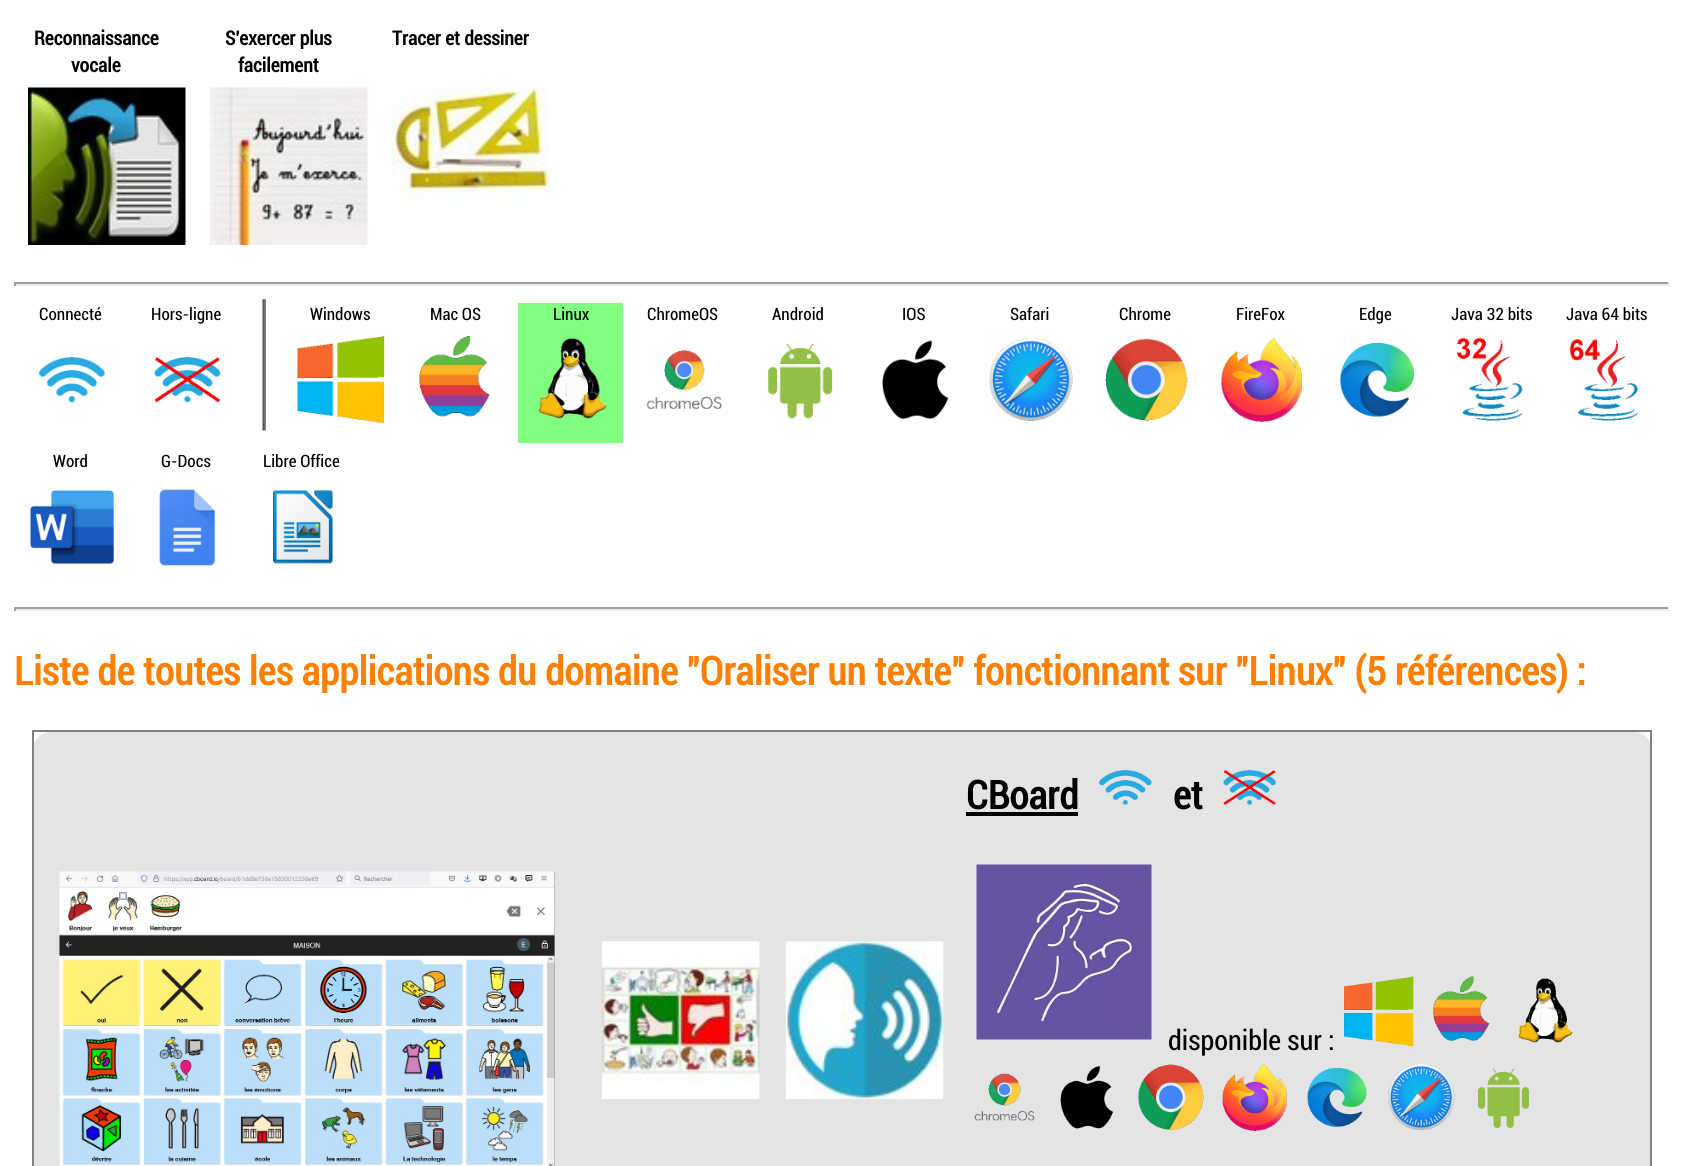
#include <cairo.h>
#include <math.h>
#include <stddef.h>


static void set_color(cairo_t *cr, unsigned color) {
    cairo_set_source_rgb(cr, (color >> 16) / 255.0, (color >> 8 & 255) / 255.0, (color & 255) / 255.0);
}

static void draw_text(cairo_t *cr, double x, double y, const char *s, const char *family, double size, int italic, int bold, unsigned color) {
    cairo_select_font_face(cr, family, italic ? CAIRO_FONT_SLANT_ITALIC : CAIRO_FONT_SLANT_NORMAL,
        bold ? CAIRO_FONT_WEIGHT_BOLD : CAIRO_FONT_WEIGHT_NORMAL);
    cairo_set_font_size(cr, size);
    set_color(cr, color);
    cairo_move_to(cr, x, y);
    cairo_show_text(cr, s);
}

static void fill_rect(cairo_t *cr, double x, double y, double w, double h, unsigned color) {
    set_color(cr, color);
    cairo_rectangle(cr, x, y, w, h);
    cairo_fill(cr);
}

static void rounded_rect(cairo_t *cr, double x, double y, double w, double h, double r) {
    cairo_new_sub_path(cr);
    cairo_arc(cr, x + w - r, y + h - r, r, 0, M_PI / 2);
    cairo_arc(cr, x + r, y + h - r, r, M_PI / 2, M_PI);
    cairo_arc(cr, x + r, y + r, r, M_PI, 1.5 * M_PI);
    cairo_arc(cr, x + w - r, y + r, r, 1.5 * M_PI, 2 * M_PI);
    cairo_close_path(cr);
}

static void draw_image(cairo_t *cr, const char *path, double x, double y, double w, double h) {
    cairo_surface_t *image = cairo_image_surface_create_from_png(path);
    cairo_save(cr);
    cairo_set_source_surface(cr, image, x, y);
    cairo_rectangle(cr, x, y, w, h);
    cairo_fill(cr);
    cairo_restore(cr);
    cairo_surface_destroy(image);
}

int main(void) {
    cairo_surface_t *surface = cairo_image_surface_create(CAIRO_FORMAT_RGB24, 1683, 1166);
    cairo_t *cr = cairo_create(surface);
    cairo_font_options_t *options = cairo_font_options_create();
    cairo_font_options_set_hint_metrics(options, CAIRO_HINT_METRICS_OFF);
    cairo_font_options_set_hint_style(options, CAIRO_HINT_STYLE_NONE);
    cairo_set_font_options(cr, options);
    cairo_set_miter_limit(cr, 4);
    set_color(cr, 0xFFFFFF);
    cairo_paint(cr);
    draw_text(cr, 34, 45, "Reconnaissance", "Roboto", 19.5, 0, 1, 0x000000);
    draw_text(cr, 71, 72, "vocale", "Roboto", 19.5, 0, 1, 0x000000);
    draw_image(cr, "assets/img1.png", 28, 87, 158, 158);
    draw_text(cr, 225, 45, "S'exercer plus", "Roboto", 19.5, 0, 1, 0x000000);
    draw_text(cr, 238, 72, "facilement", "Roboto", 19.5, 0, 1, 0x000000);
    draw_image(cr, "assets/img2.png", 210, 87, 158, 158);
    draw_text(cr, 392, 45, "Tracer et dessiner", "Roboto", 19.5, 0, 1, 0x000000);
    draw_image(cr, "assets/img3.png", 392, 87, 158, 116);
    fill_rect(cr, 14, 282, 1656, 2, 0x9F9F9F);
    fill_rect(cr, 1668, 282, 2, 4, 0xEEEEEE);
    fill_rect(cr, 14, 284, 1656, 2, 0xEEEEEE);
    fill_rect(cr, 14, 282, 2, 4, 0x9F9F9F);
    draw_text(cr, 39, 320, "Connecté", "Roboto", 17, 0, 0, 0x000000);
    draw_image(cr, "assets/img4.png", 38, 357, 67, 46);
    draw_text(cr, 151, 320, "Hors-ligne", "Roboto", 17, 0, 0, 0x000000);
    draw_image(cr, "assets/img5.png", 154, 357, 67, 46);
    draw_image(cr, "assets/img6.png", 262, 299, 4, 132);
    draw_text(cr, 310, 320, "Windows", "Roboto", 17, 0, 0, 0x000000);
    draw_image(cr, "assets/img7.png", 297, 336, 88, 88);
    draw_text(cr, 430, 320, "Mac OS", "Roboto", 17, 0, 0, 0x000000);
    draw_image(cr, "assets/img8.png", 419, 336, 71, 81);
    fill_rect(cr, 518, 303, 105, 140, 0x80FF80);
    draw_text(cr, 553, 320, "Linux", "Roboto", 17, 0, 0, 0x000000);
    draw_image(cr, "assets/img9.png", 539, 338, 68, 81);
    draw_text(cr, 647, 320, "ChromeOS", "Roboto", 17, 0, 0, 0x000000);
    draw_image(cr, "assets/img10.png", 646, 350, 76, 60);
    draw_text(cr, 772, 320, "Android", "Roboto", 17, 0, 0, 0x000000);
    draw_image(cr, "assets/img11.png", 768, 343, 65, 76);
    draw_text(cr, 902, 320, "IOS", "Roboto", 17, 0, 0, 0x000000);
    draw_image(cr, "assets/img12.png", 882, 340, 67, 80);
    draw_text(cr, 1010, 320, "Safari", "Roboto", 17, 0, 0, 0x000000);
    draw_image(cr, "assets/img13.png", 989, 337, 84, 84);
    draw_text(cr, 1119, 320, "Chrome", "Roboto", 17, 0, 0, 0x000000);
    draw_image(cr, "assets/img14.png", 1105, 338, 83, 83);
    draw_text(cr, 1236, 320, "FireFox", "Roboto", 17, 0, 0, 0x000000);
    draw_image(cr, "assets/img15.png", 1221, 337, 81, 85);
    draw_text(cr, 1359, 320, "Edge", "Roboto", 17, 0, 0, 0x000000);
    draw_image(cr, "assets/img16.png", 1339, 343, 75, 74);
    draw_text(cr, 1451, 320, "Java 32 bits", "Roboto", 17, 0, 0, 0x000000);
    draw_image(cr, "assets/img17.png", 1456, 337, 67, 84);
    draw_text(cr, 1566, 320, "Java 64 bits", "Roboto", 17, 0, 0, 0x000000);
    draw_image(cr, "assets/img18.png", 1569, 339, 69, 82);
    draw_text(cr, 53, 467, "Word", "Roboto", 17, 0, 0, 0x000000);
    draw_image(cr, "assets/img19.png", 29, 490, 85, 74);
    draw_text(cr, 161, 467, "G-Docs", "Roboto", 17, 0, 0, 0x000000);
    draw_image(cr, "assets/img20.png", 159, 489, 57, 77);
    draw_text(cr, 263, 467, "Libre Office", "Roboto", 17, 0, 0, 0x000000);
    draw_image(cr, "assets/img21.png", 273, 490, 60, 74);
    fill_rect(cr, 14, 607, 1656, 2, 0x9F9F9F);
    fill_rect(cr, 1668, 607, 2, 4, 0xEEEEEE);
    fill_rect(cr, 14, 609, 1656, 2, 0xEEEEEE);
    fill_rect(cr, 14, 607, 2, 4, 0x9F9F9F);
    draw_text(cr, 14, 685, "Liste de toutes les applications du domaine \"Oraliser un texte\" fonctionnant sur \"Linux\" (5 références) :", "Roboto", 39.2, 0, 1, 0xFF8000);
    set_color(cr, 0xE4E4E4);
    rounded_rect(cr, 33, 732, 1619, 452, 18);
    cairo_fill(cr);
    fill_rect(cr, 32, 730, 1620, 2, 0x808080);
    fill_rect(cr, 1650, 730, 2, 436, 0x808080);
    fill_rect(cr, 32, 730, 2, 436, 0x808080);
    draw_image(cr, "assets/img22.png", 59, 871, 496, 295);
    draw_image(cr, "assets/img23.png", 602, 941, 158, 158);
    draw_image(cr, "assets/img24.png", 785, 941, 159, 158);
    draw_text(cr, 966, 809, "CBoard", "Roboto", 39.2, 0, 1, 0x000000);
    fill_rect(cr, 966, 812, 112, 4, 0x000000);
    draw_image(cr, "assets/img25.png", 1098, 770, 54, 35);
    draw_text(cr, 1173, 809, "et", "Roboto", 39.2, 0, 1, 0x000000);
    draw_image(cr, "assets/img26.png", 1223, 770, 53, 35);
    draw_image(cr, "assets/img27.png", 976, 864, 176, 176);
    draw_text(cr, 1168, 1050, "disponible sur :", "Roboto", 28, 0, 0, 0x000000);
    draw_image(cr, "assets/img28.png", 1344, 976, 70, 71);
    draw_image(cr, "assets/img29.png", 1433, 976, 57, 65);
    draw_image(cr, "assets/img30.png", 1518, 978, 55, 65);
    draw_image(cr, "assets/img31.png", 974, 1073, 61, 48);
    draw_image(cr, "assets/img32.png", 1060, 1065, 54, 64);
    draw_image(cr, "assets/img33.png", 1138, 1064, 66, 66);
    draw_image(cr, "assets/img34.png", 1222, 1063, 65, 68);
    draw_image(cr, "assets/img35.png", 1307, 1068, 60, 59);
    draw_image(cr, "assets/img36.png", 1388, 1063, 67, 67);
    draw_image(cr, "assets/img37.png", 1478, 1068, 51, 60);
    cairo_surface_write_to_png(surface, "output.png");
    cairo_font_options_destroy(options);
    cairo_destroy(cr);
    cairo_surface_destroy(surface);
    return 0;
}
